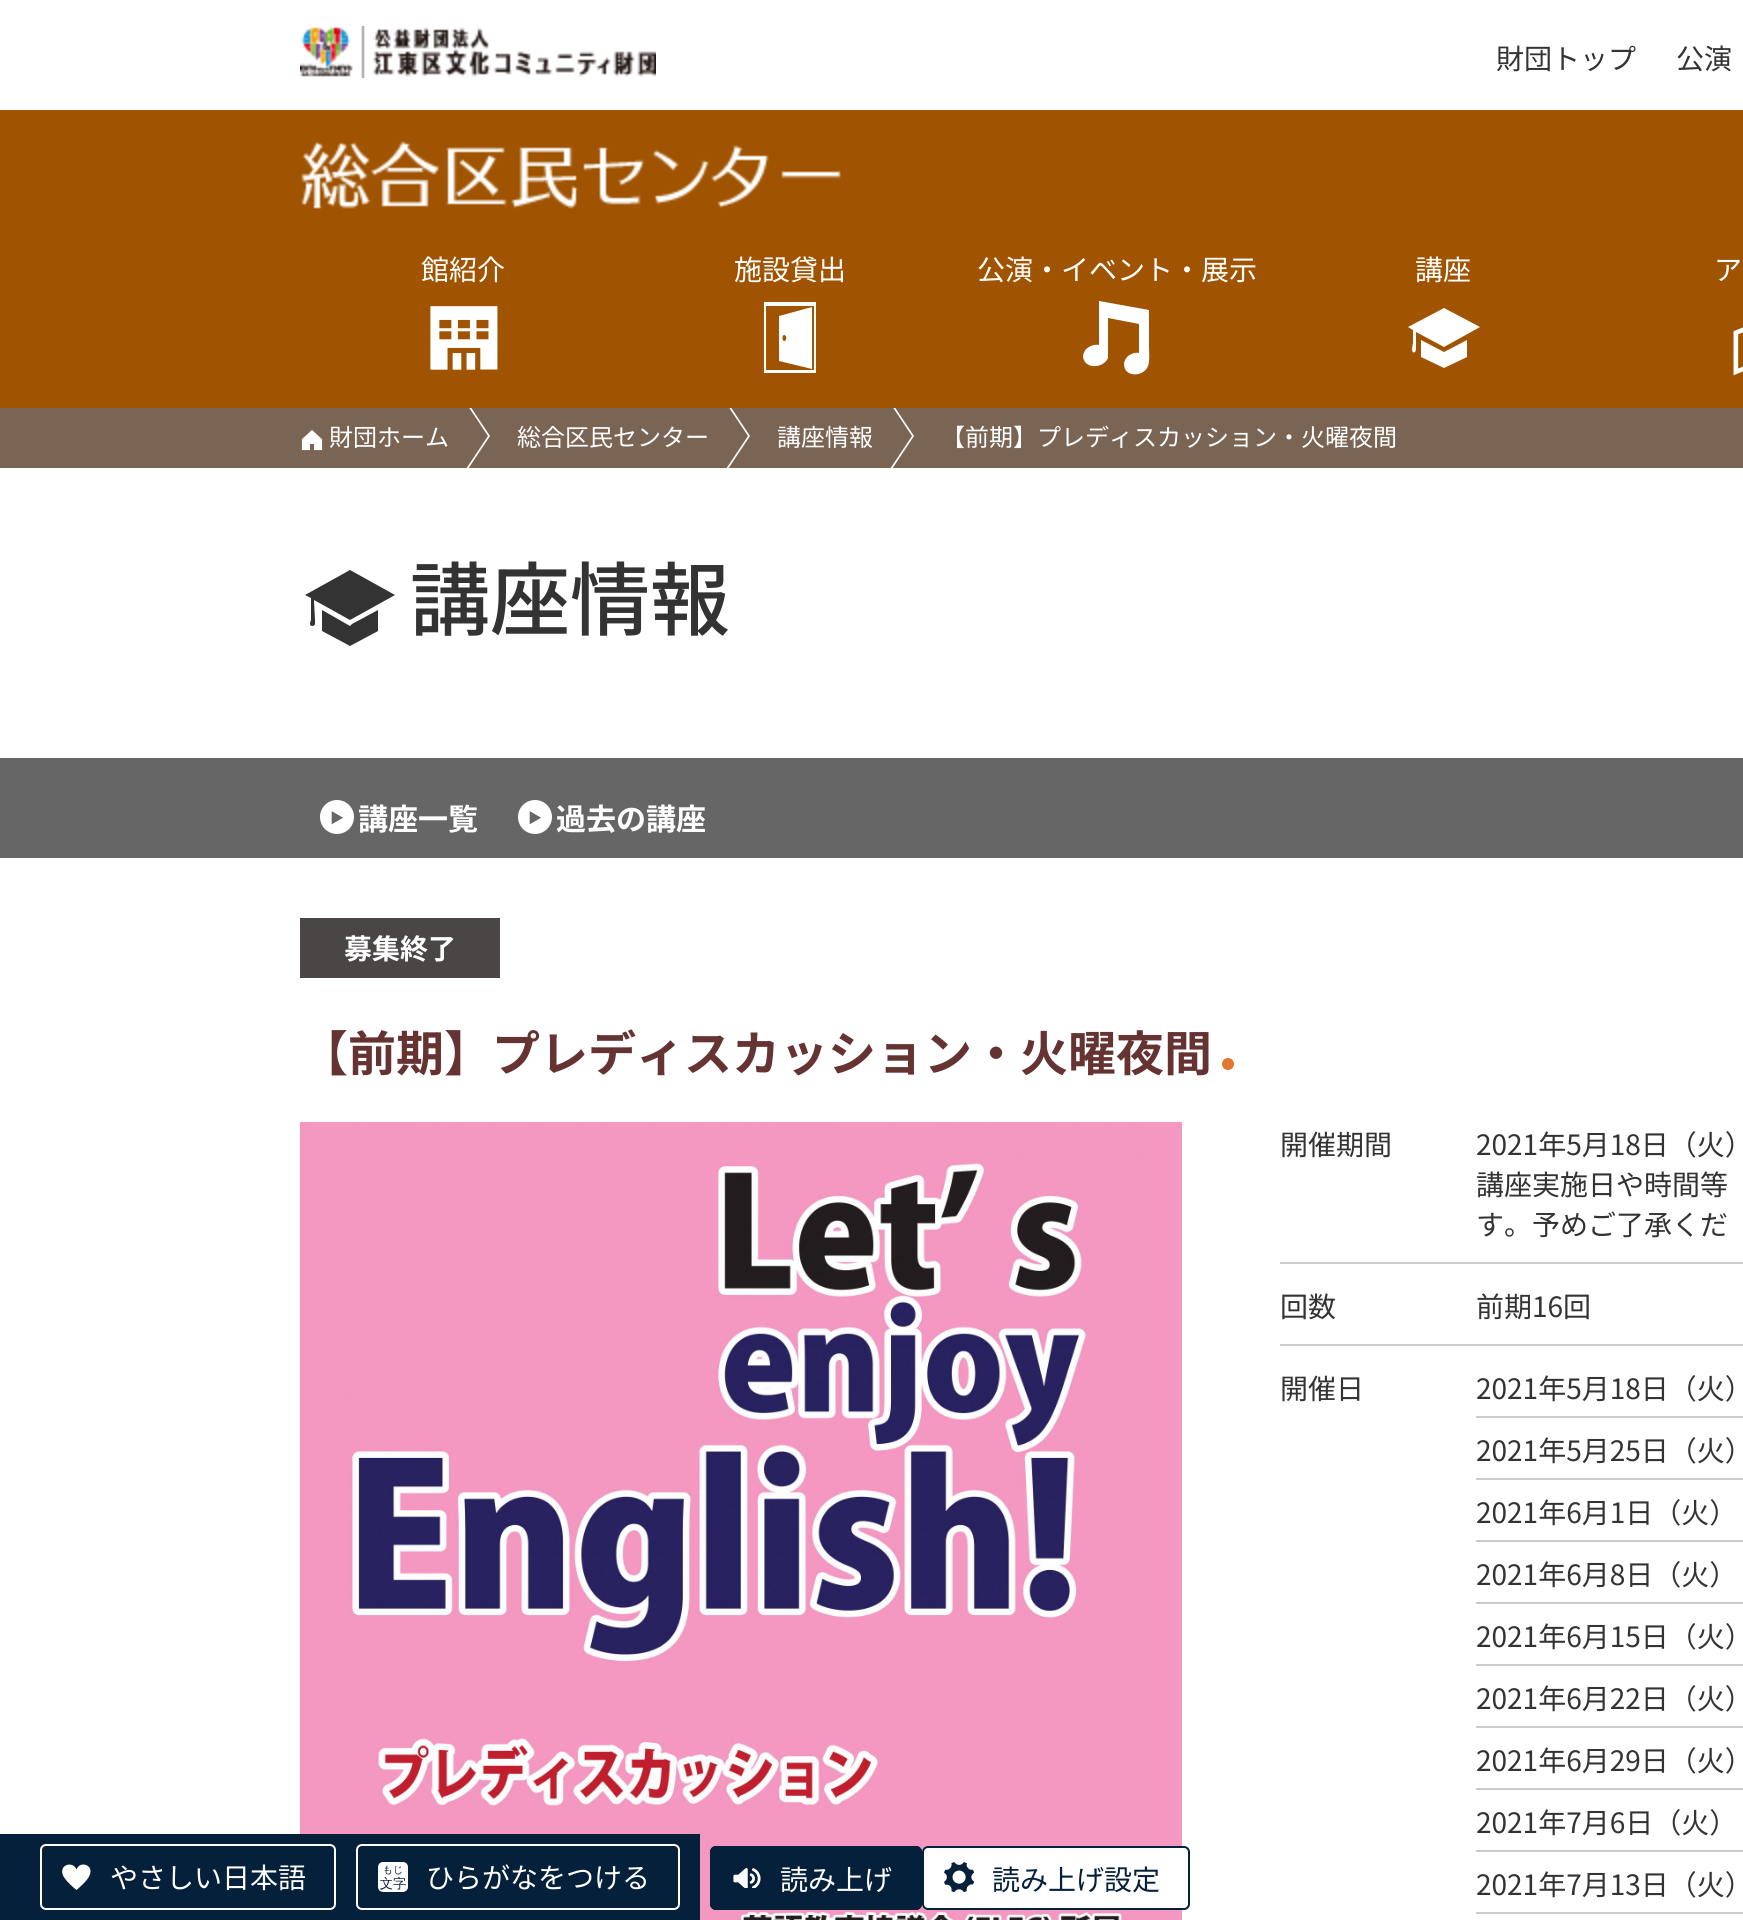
#include <cairo.h>
#include <math.h>
#include <stddef.h>


static void set_color(cairo_t *cr, unsigned color) {
    cairo_set_source_rgb(cr, (color >> 16) / 255.0, (color >> 8 & 255) / 255.0, (color & 255) / 255.0);
}

static void draw_text(cairo_t *cr, double x, double y, const char *s, const char *family, double size, int italic, int bold, unsigned color) {
    cairo_select_font_face(cr, family, italic ? CAIRO_FONT_SLANT_ITALIC : CAIRO_FONT_SLANT_NORMAL,
        bold ? CAIRO_FONT_WEIGHT_BOLD : CAIRO_FONT_WEIGHT_NORMAL);
    cairo_set_font_size(cr, size);
    set_color(cr, color);
    cairo_move_to(cr, x, y);
    cairo_show_text(cr, s);
}

static void fill_rect(cairo_t *cr, double x, double y, double w, double h, unsigned color) {
    set_color(cr, color);
    cairo_rectangle(cr, x, y, w, h);
    cairo_fill(cr);
}

static void rounded_rect(cairo_t *cr, double x, double y, double w, double h, double r) {
    cairo_new_sub_path(cr);
    cairo_arc(cr, x + w - r, y + h - r, r, 0, M_PI / 2);
    cairo_arc(cr, x + r, y + h - r, r, M_PI / 2, M_PI);
    cairo_arc(cr, x + r, y + r, r, M_PI, 1.5 * M_PI);
    cairo_arc(cr, x + w - r, y + r, r, 1.5 * M_PI, 2 * M_PI);
    cairo_close_path(cr);
}

static void draw_image(cairo_t *cr, const char *path, double x, double y, double w, double h) {
    cairo_surface_t *image = cairo_image_surface_create_from_png(path);
    cairo_save(cr);
    cairo_set_source_surface(cr, image, x, y);
    cairo_rectangle(cr, x, y, w, h);
    cairo_fill(cr);
    cairo_restore(cr);
    cairo_surface_destroy(image);
}

int main(void) {
    cairo_surface_t *surface = cairo_image_surface_create(CAIRO_FORMAT_RGB24, 1743, 1920);
    cairo_t *cr = cairo_create(surface);
    cairo_font_options_t *options = cairo_font_options_create();
    cairo_font_options_set_hint_metrics(options, CAIRO_HINT_METRICS_OFF);
    cairo_font_options_set_hint_style(options, CAIRO_HINT_STYLE_NONE);
    cairo_set_font_options(cr, options);
    cairo_set_miter_limit(cr, 4);
    set_color(cr, 0xFFFFFF);
    cairo_paint(cr);
    draw_image(cr, "assets/img1.png", 300, 26, 356, 52);
    draw_text(cr, 1496, 69, "財団トップ", "Noto Sans JP", 28, 0, 0, 0x333333);
    draw_text(cr, 1676, 69, "公演", "Noto Sans JP", 28, 0, 0, 0x333333);
    fill_rect(cr, 0, 110, 1743, 298, 0xA05300);
    draw_image(cr, "assets/img2.png", 301, 141, 540, 68);
    draw_text(cr, 421, 280, "館紹介", "Noto Sans JP", 28, 0, 0, 0xFFFFFF);
    draw_image(cr, "assets/img3.png", 430, 306, 68, 64);
    draw_text(cr, 734, 280, "施設貸出", "Noto Sans JP", 28, 0, 0, 0xFFFFFF);
    cairo_new_path(cr);
    cairo_move_to(cr, 764, 302);
    cairo_line_to(cr, 764, 373);
    cairo_line_to(cr, 816, 373);
    cairo_line_to(cr, 816, 302);
    cairo_close_path(cr);
    cairo_move_to(cr, 814, 370);
    cairo_line_to(cr, 766, 370);
    cairo_line_to(cr, 766, 306);
    cairo_line_to(cr, 814, 306);
    cairo_close_path(cr);
    cairo_move_to(cr, 812, 357);
    cairo_line_to(cr, 812, 307);
    cairo_line_to(cr, 779, 316);
    cairo_line_to(cr, 779, 361);
    cairo_line_to(cr, 812, 369);
    cairo_close_path(cr);
    cairo_move_to(cr, 784, 341);
    cairo_curve_to(cr, 782, 341, 782, 335, 784, 335);
    cairo_curve_to(cr, 787, 335, 787, 341, 784, 341);
    cairo_close_path(cr);
    cairo_fill(cr);
    draw_text(cr, 977, 280, "公演・イベント・展示", "Noto Sans JP", 28, 0, 0, 0xFFFFFF);
    cairo_new_path(cr);
    cairo_move_to(cr, 1099, 301);
    cairo_line_to(cr, 1099, 345);
    cairo_curve_to(cr, 1094, 344, 1090, 346, 1086, 349);
    cairo_curve_to(cr, 1084, 352, 1083, 354, 1083, 357);
    cairo_curve_to(cr, 1085, 370, 1104, 368, 1108, 358);
    cairo_line_to(cr, 1108, 318);
    cairo_line_to(cr, 1139, 324);
    cairo_line_to(cr, 1139, 353);
    cairo_curve_to(cr, 1135, 352, 1131, 354, 1128, 356);
    cairo_curve_to(cr, 1126, 358, 1124, 361, 1124, 364);
    cairo_curve_to(cr, 1124, 378, 1144, 377, 1148, 366);
    cairo_curve_to(cr, 1150, 361, 1149, 351, 1149, 346);
    cairo_line_to(cr, 1149, 310);
    cairo_close_path(cr);
    cairo_fill(cr);
    draw_text(cr, 1415, 280, "講座", "Noto Sans JP", 28, 0, 0, 0xFFFFFF);
    cairo_new_path(cr);
    cairo_move_to(cr, 1444, 308);
    cairo_line_to(cr, 1408, 327);
    cairo_line_to(cr, 1413, 330);
    cairo_line_to(cr, 1413, 343);
    cairo_curve_to(cr, 1413, 343, 1410, 355, 1415, 352);
    cairo_line_to(cr, 1416, 350);
    cairo_line_to(cr, 1416, 332);
    cairo_line_to(cr, 1444, 347);
    cairo_line_to(cr, 1480, 327);
    cairo_close_path(cr);
    cairo_move_to(cr, 1446, 351);
    cairo_line_to(cr, 1444, 352);
    cairo_line_to(cr, 1421, 340);
    cairo_line_to(cr, 1421, 357);
    cairo_line_to(cr, 1444, 368);
    cairo_line_to(cr, 1467, 357);
    cairo_line_to(cr, 1467, 340);
    cairo_close_path(cr);
    cairo_fill(cr);
    draw_text(cr, 1714, 280, "ア", "Noto Sans JP", 28, 0, 0, 0xFFFFFF);
    draw_image(cr, "assets/img4.png", 1733, 327, 10, 49);
    fill_rect(cr, 0, 408, 1743, 60, 0x7A6554);
    cairo_save(cr);
    cairo_rectangle(cr, 300, 408, 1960, 60);
    cairo_clip(cr);
    set_color(cr, 0xFFFFFF);
    cairo_new_path(cr);
    cairo_move_to(cr, 450, 496);
    cairo_line_to(cr, 450, 376);
    cairo_line_to(cr, 490, 436);
    cairo_close_path(cr);
    cairo_fill(cr);
    set_color(cr, 0x7A6554);
    cairo_new_path(cr);
    cairo_move_to(cr, 448, 496);
    cairo_line_to(cr, 448, 376);
    cairo_line_to(cr, 488, 436);
    cairo_close_path(cr);
    cairo_fill(cr);
    cairo_restore(cr);
    draw_image(cr, "assets/img5.png", 301, 430, 22, 21);
    draw_text(cr, 329, 446, "財団ホーム", "Noto Sans JP", 24, 0, 0, 0xFFFFFF);
    cairo_save(cr);
    cairo_rectangle(cr, 300, 408, 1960, 60);
    cairo_clip(cr);
    cairo_new_path(cr);
    cairo_move_to(cr, 710, 496);
    cairo_line_to(cr, 710, 376);
    cairo_line_to(cr, 750, 436);
    cairo_close_path(cr);
    cairo_fill(cr);
    set_color(cr, 0x7A6554);
    cairo_new_path(cr);
    cairo_move_to(cr, 708, 496);
    cairo_line_to(cr, 708, 376);
    cairo_line_to(cr, 748, 436);
    cairo_close_path(cr);
    cairo_fill(cr);
    cairo_restore(cr);
    draw_text(cr, 517, 446, "総合区民センター", "Noto Sans JP", 24, 0, 0, 0xFFFFFF);
    draw_text(cr, 777, 446, "講座情報", "Noto Sans JP", 24, 0, 0, 0xFFFFFF);
    cairo_save(cr);
    cairo_rectangle(cr, 300, 408, 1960, 60);
    cairo_clip(cr);
    cairo_new_path(cr);
    cairo_move_to(cr, 874, 496);
    cairo_line_to(cr, 874, 376);
    cairo_line_to(cr, 914, 436);
    cairo_close_path(cr);
    cairo_fill(cr);
    set_color(cr, 0x7A6554);
    cairo_new_path(cr);
    cairo_move_to(cr, 872, 496);
    cairo_line_to(cr, 872, 376);
    cairo_line_to(cr, 912, 436);
    cairo_close_path(cr);
    cairo_fill(cr);
    cairo_restore(cr);
    draw_text(cr, 941, 446, "【前期】プレディスカッション・火曜夜間", "Noto Sans JP", 24, 0, 0, 0xFFFFFF);
    set_color(cr, 0x333333);
    cairo_new_path(cr);
    cairo_move_to(cr, 350, 570);
    cairo_line_to(cr, 305, 595);
    cairo_line_to(cr, 311, 598);
    cairo_line_to(cr, 311, 620);
    cairo_curve_to(cr, 310, 622, 309, 626, 312, 626);
    cairo_curve_to(cr, 316, 626, 315, 622, 315, 620);
    cairo_line_to(cr, 314, 600);
    cairo_line_to(cr, 350, 620);
    cairo_line_to(cr, 395, 595);
    cairo_close_path(cr);
    cairo_move_to(cr, 352, 624);
    cairo_line_to(cr, 350, 626);
    cairo_line_to(cr, 322, 610);
    cairo_line_to(cr, 322, 631);
    cairo_line_to(cr, 350, 646);
    cairo_line_to(cr, 378, 631);
    cairo_line_to(cr, 378, 610);
    cairo_close_path(cr);
    cairo_fill(cr);
    draw_text(cr, 410, 629, "講座情報", "Noto Sans JP Medium", 80, 0, 0, 0x333333);
    fill_rect(cr, 0, 758, 1743, 100, 0x666666);
    set_color(cr, 0xFFFFFF);
    cairo_new_path(cr);
    cairo_arc(cr, 337, 817, 17, 0, 2 * M_PI);
    cairo_fill(cr);
    draw_text(cr, 330, 823, "▶", "Noto Sans JP", 14, 0, 1, 0x666666);
    draw_text(cr, 358, 830, "講座一覧", "Noto Sans JP", 30, 0, 1, 0xFFFFFF);
    cairo_new_path(cr);
    cairo_arc(cr, 535, 817, 17, 0, 2 * M_PI);
    cairo_fill(cr);
    draw_text(cr, 528, 823, "▶", "Noto Sans JP", 14, 0, 1, 0x666666);
    draw_text(cr, 556, 830, "過去の講座", "Noto Sans JP", 30, 0, 1, 0xFFFFFF);
    fill_rect(cr, 300, 918, 200, 60, 0x4B4646);
    draw_text(cr, 344, 959, "募集終了", "Noto Sans JP", 28, 0, 1, 0xFFFFFF);
    draw_text(cr, 300, 1071, "【前期】プレディスカッション・火曜夜間", "Noto Sans JP", 48, 0, 1, 0x663333);
    set_color(cr, 0xE57533);
    cairo_new_path(cr);
    cairo_arc(cr, 1228, 1064, 6, 0, 2 * M_PI);
    cairo_fill(cr);
    draw_image(cr, "assets/img6.png", 300, 1122, 882, 798);
    fill_rect(cr, 1280, 1262, 463, 2, 0xCCCCCC);
    draw_text(cr, 1280, 1155, "開催期間", "Noto Sans JP", 28, 0, 0, 0x333333);
    draw_text(cr, 1476, 1155, "2021年5月18日（火）", "Noto Sans JP", 28, 0, 0, 0x333333);
    draw_text(cr, 1476, 1195, "講座実施日や時間等", "Noto Sans JP", 28, 0, 0, 0x333333);
    draw_text(cr, 1476, 1235, "す。予めご了承くだ", "Noto Sans JP", 28, 0, 0, 0x333333);
    fill_rect(cr, 1280, 1344, 463, 2, 0xCCCCCC);
    draw_text(cr, 1280, 1317, "回数", "Noto Sans JP", 28, 0, 0, 0x333333);
    draw_text(cr, 1476, 1317, "前期16回", "Noto Sans JP", 28, 0, 0, 0x333333);
    draw_text(cr, 1280, 1399, "開催日", "Noto Sans JP", 28, 0, 0, 0x333333);
    fill_rect(cr, 1476, 1416, 267, 2, 0xCCCCCC);
    draw_text(cr, 1476, 1399, "2021年5月18日（火）", "Noto Sans JP", 28, 0, 0, 0x333333);
    fill_rect(cr, 1476, 1478, 267, 2, 0xCCCCCC);
    draw_text(cr, 1476, 1461, "2021年5月25日（火）", "Noto Sans JP", 28, 0, 0, 0x333333);
    fill_rect(cr, 1476, 1540, 267, 2, 0xCCCCCC);
    draw_text(cr, 1476, 1523, "2021年6月1日（火）", "Noto Sans JP", 28, 0, 0, 0x333333);
    fill_rect(cr, 1476, 1602, 267, 2, 0xCCCCCC);
    draw_text(cr, 1476, 1585, "2021年6月8日（火）", "Noto Sans JP", 28, 0, 0, 0x333333);
    fill_rect(cr, 1476, 1664, 267, 2, 0xCCCCCC);
    draw_text(cr, 1476, 1647, "2021年6月15日（火）", "Noto Sans JP", 28, 0, 0, 0x333333);
    fill_rect(cr, 1476, 1726, 267, 2, 0xCCCCCC);
    draw_text(cr, 1476, 1709, "2021年6月22日（火）", "Noto Sans JP", 28, 0, 0, 0x333333);
    fill_rect(cr, 1476, 1788, 267, 2, 0xCCCCCC);
    draw_text(cr, 1476, 1771, "2021年6月29日（火）", "Noto Sans JP", 28, 0, 0, 0x333333);
    fill_rect(cr, 1476, 1850, 267, 2, 0xCCCCCC);
    draw_text(cr, 1476, 1833, "2021年7月6日（火）", "Noto Sans JP", 28, 0, 0, 0x333333);
    fill_rect(cr, 1476, 1912, 267, 2, 0xCCCCCC);
    draw_text(cr, 1476, 1895, "2021年7月13日（火）", "Noto Sans JP", 28, 0, 0, 0x333333);
    fill_rect(cr, 0, 1834, 700, 86, 0x05203A);
    set_color(cr, 0xFFFFFF);
    cairo_set_fill_rule(cr, CAIRO_FILL_RULE_EVEN_ODD);
    cairo_new_path(cr);
    cairo_move_to(cr, 76.5, 1869.5);
    cairo_curve_to(cr, 73, 1860.5, 58.5, 1864.5, 63, 1875.5);
    cairo_curve_to(cr, 65.5, 1880.5, 72, 1886.5, 76.5, 1890);
    cairo_curve_to(cr, 80.5, 1886.5, 87.5, 1880.5, 89.5, 1875.5);
    cairo_curve_to(cr, 94.5, 1864.5, 79.5, 1860.5, 76.5, 1869.5);
    cairo_close_path(cr);
    cairo_fill(cr);
    rounded_rect(cr, 41, 1845, 294, 64, 5);
    cairo_stroke(cr);
    draw_text(cr, 110, 1888, "やさしい日本語", "Noto Sans JP", 28, 0, 0, 0xFFFFFF);
    draw_image(cr, "assets/img7.png", 378, 1862, 30, 30);
    rounded_rect(cr, 357, 1845, 322, 64, 5);
    cairo_stroke(cr);
    draw_text(cr, 426, 1888, "ひらがなをつける", "Noto Sans JP", 28, 0, 0, 0xFFFFFF);
    set_color(cr, 0x05203A);
    rounded_rect(cr, 710, 1846, 212, 64, 6);
    cairo_fill(cr);
    draw_image(cr, "assets/img8.png", 733, 1868, 28, 20);
    rounded_rect(cr, 711, 1847, 210, 62, 5);
    cairo_stroke(cr);
    draw_text(cr, 780, 1890, "読み上げ", "Noto Sans JP", 28, 0, 0, 0xFFFFFF);
    rounded_rect(cr, 922, 1846, 268, 64, 6);
    cairo_fill(cr);
    draw_image(cr, "assets/img9.png", 944, 1862, 30, 30);
    rounded_rect(cr, 923, 1847, 266, 62, 5);
    set_color(cr, 0x05203A);
    cairo_stroke(cr);
    draw_text(cr, 992, 1890, "読み上げ設定", "Noto Sans JP", 28, 0, 0, 0x05203A);
    cairo_surface_write_to_png(surface, "output.png");
    cairo_font_options_destroy(options);
    cairo_destroy(cr);
    cairo_surface_destroy(surface);
    return 0;
}
